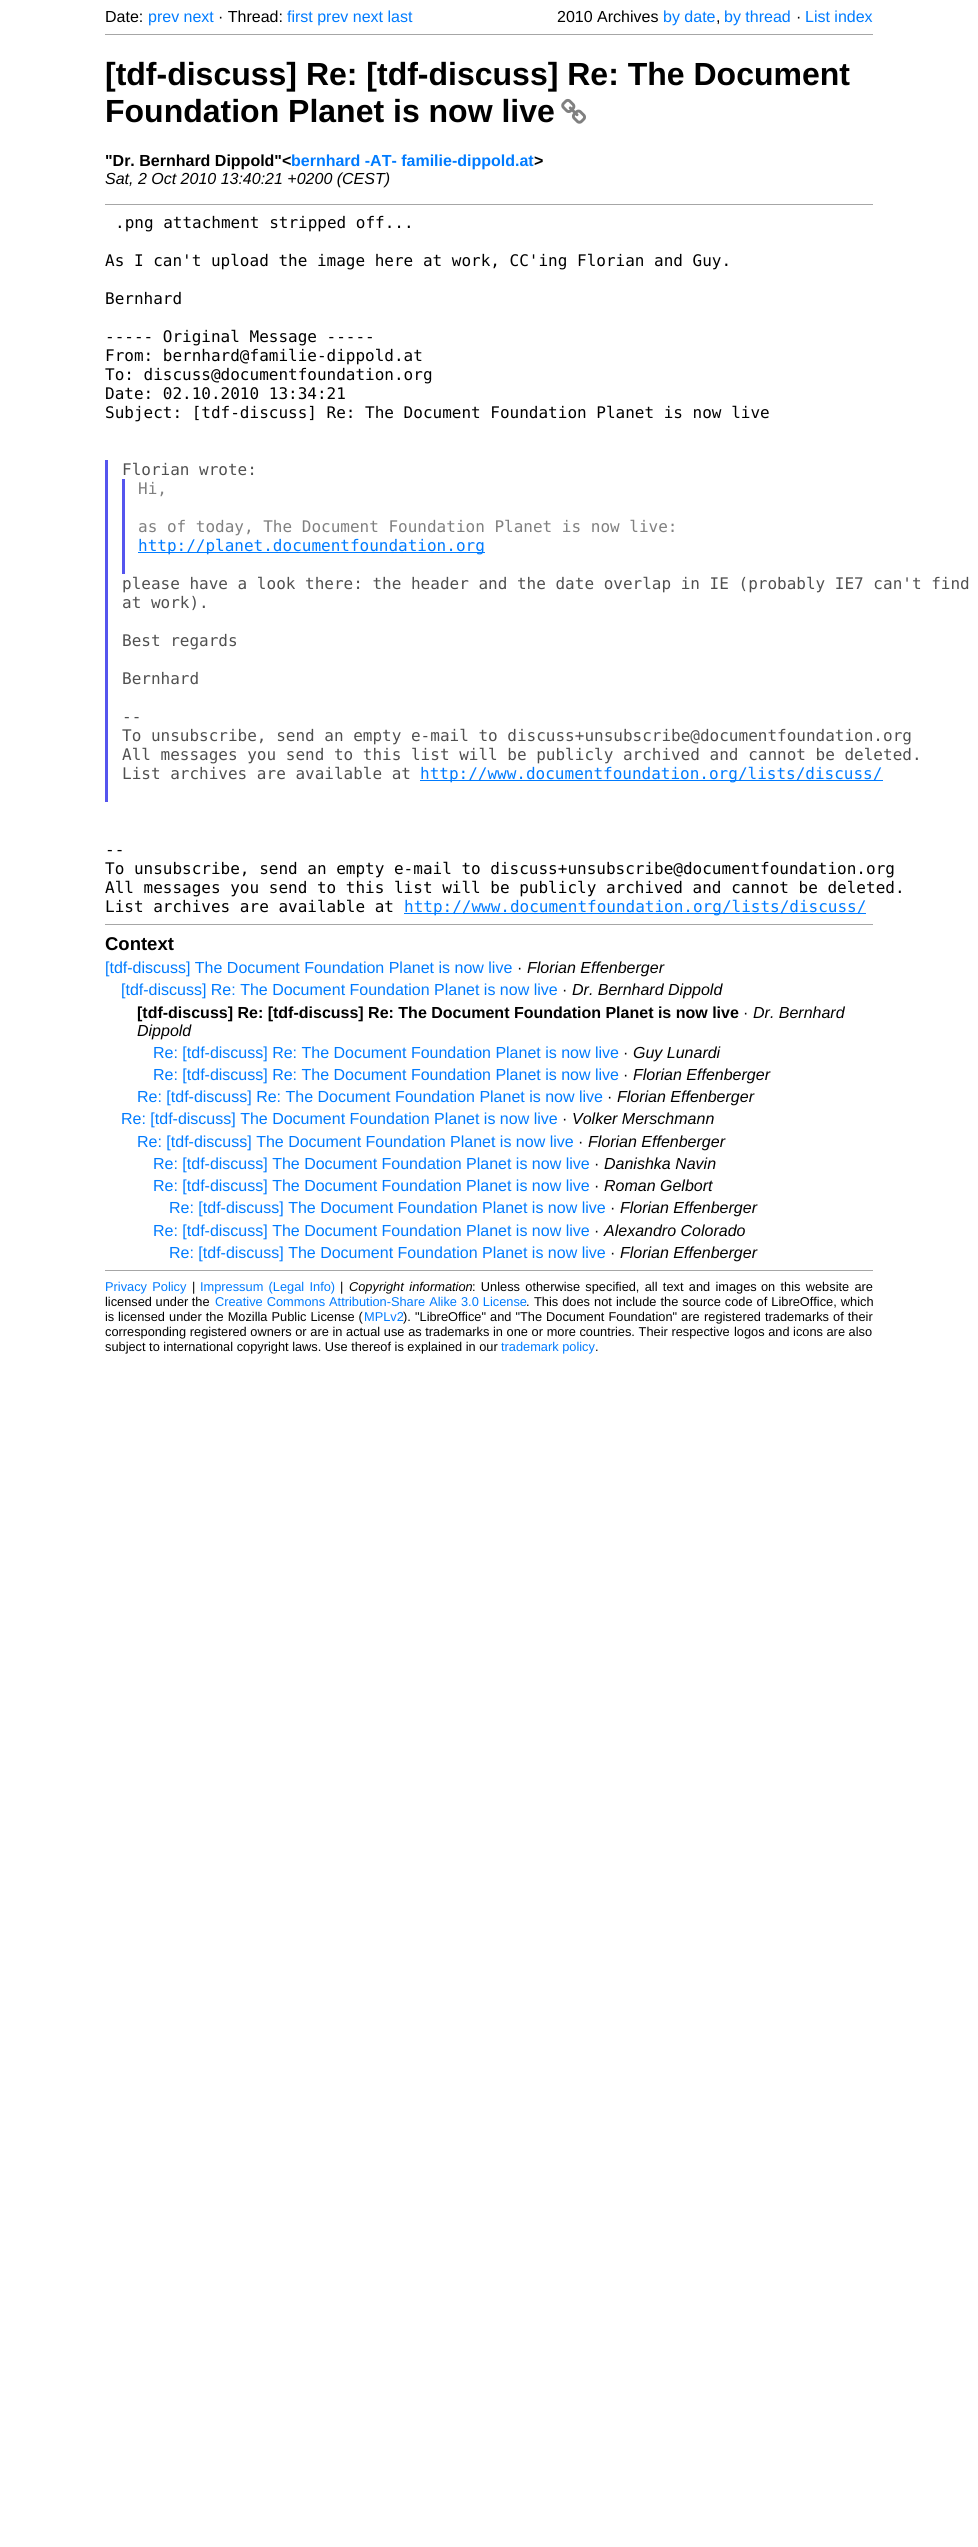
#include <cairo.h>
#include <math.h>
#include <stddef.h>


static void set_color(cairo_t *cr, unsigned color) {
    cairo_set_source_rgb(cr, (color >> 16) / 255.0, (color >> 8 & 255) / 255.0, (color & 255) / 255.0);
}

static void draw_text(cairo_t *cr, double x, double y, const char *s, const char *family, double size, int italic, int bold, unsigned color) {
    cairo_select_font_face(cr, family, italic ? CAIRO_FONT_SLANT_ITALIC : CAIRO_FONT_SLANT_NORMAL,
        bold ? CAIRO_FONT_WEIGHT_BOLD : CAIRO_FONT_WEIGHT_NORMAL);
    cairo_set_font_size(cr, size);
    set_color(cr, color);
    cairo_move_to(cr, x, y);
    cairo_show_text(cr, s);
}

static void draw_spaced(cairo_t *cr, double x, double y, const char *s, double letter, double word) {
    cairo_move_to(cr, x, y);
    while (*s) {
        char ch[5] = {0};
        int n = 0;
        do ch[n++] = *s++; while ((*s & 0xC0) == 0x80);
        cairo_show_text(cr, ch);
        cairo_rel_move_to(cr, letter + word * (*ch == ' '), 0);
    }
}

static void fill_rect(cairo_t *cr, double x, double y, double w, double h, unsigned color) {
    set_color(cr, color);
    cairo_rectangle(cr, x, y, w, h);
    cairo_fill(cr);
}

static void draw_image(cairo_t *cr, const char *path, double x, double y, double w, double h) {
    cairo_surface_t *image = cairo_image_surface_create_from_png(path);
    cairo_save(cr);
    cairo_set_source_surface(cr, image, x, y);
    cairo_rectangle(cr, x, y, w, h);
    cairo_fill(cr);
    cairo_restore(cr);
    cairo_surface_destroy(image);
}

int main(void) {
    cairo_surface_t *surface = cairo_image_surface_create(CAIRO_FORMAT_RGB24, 978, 2547);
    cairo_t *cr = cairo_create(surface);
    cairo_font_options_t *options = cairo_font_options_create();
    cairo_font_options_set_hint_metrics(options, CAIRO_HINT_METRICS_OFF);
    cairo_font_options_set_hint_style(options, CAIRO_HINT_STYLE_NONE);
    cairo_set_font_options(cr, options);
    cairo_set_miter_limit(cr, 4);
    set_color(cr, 0xFFFFFF);
    cairo_paint(cr);
    draw_text(cr, 105, 22, "Date:", "Liberation Sans", 16, 0, 0, 0x000000);
    draw_text(cr, 148, 22, "prev next", "Liberation Sans", 16, 0, 0, 0x007BFF);
    draw_text(cr, 218, 22, "· Thread:", "Liberation Sans", 16, 0, 0, 0x000000);
    draw_text(cr, 287, 22, "first prev next last", "Liberation Sans", 16, 0, 0, 0x007BFF);
    draw_text(cr, 557, 22, "2010 Archives", "Liberation Sans", 16, 0, 0, 0x000000);
    draw_text(cr, 663, 22, "by date", "Liberation Sans", 16, 0, 0, 0x007BFF);
    draw_text(cr, 724, 22, "by thread", "Liberation Sans", 16, 0, 0, 0x007BFF);
    draw_text(cr, 796, 22, "·", "Liberation Sans", 16, 0, 0, 0x000000);
    draw_text(cr, 805, 22, "List index", "Liberation Sans", 16, 0, 0, 0x007BFF);
    draw_text(cr, 716, 22, ",", "Liberation Sans", 16, 0, 0, 0x000000);
    fill_rect(cr, 105, 34, 768, 1, 0xA6A6A6);
    draw_text(cr, 105, 85, "[tdf-discuss] Re: [tdf-discuss] Re: The Document", "Liberation Sans", 32, 0, 1, 0x000000);
    draw_text(cr, 105, 122, "Foundation Planet is now live", "Liberation Sans", 32, 0, 1, 0x000000);
    draw_image(cr, "assets/img1.png", 561, 98, 25, 26);
    draw_text(cr, 105, 166, "\"Dr. Bernhard Dippold\"<", "Liberation Sans", 16, 0, 1, 0x000000);
    draw_text(cr, 291, 166, "bernhard -AT- familie-dippold.at", "Liberation Sans", 16, 0, 1, 0x007BFF);
    draw_text(cr, 534, 166, ">", "Liberation Sans", 16, 0, 1, 0x000000);
    draw_text(cr, 105, 184, "Sat, 2 Oct 2010 13:40:21 +0200 (CEST)", "Liberation Sans", 16, 1, 0, 0x000000);
    fill_rect(cr, 105, 204, 768, 1, 0xA6A6A6);
    draw_text(cr, 115, 228, ".png attachment stripped off...", "DejaVu Sans Mono", 16, 0, 0, 0x000000);
    draw_text(cr, 105, 266, "As I can't upload the image here at work, CC'ing Florian and Guy.", "DejaVu Sans Mono", 16, 0, 0, 0x000000);
    draw_text(cr, 105, 304, "Bernhard", "DejaVu Sans Mono", 16, 0, 0, 0x000000);
    draw_text(cr, 105, 342, "----- Original Message -----", "DejaVu Sans Mono", 16, 0, 0, 0x000000);
    draw_text(cr, 105, 361, "From: bernhard@familie-dippold.at", "DejaVu Sans Mono", 16, 0, 0, 0x000000);
    draw_text(cr, 105, 380, "To: discuss@documentfoundation.org", "DejaVu Sans Mono", 16, 0, 0, 0x000000);
    draw_text(cr, 105, 399, "Date: 02.10.2010 13:34:21", "DejaVu Sans Mono", 16, 0, 0, 0x000000);
    draw_text(cr, 105, 418, "Subject: [tdf-discuss] Re: The Document Foundation Planet is now live", "DejaVu Sans Mono", 16, 0, 0, 0x000000);
    fill_rect(cr, 105, 460, 3, 342, 0x5555EE);
    draw_text(cr, 122, 475, "Florian wrote:", "DejaVu Sans Mono", 16, 0, 0, 0x505050);
    fill_rect(cr, 122, 479, 3, 95, 0x5555EE);
    draw_text(cr, 138, 494, "Hi,", "DejaVu Sans Mono", 16, 0, 0, 0x808080);
    draw_text(cr, 138, 532, "as of today, The Document Foundation Planet is now live:", "DejaVu Sans Mono", 16, 0, 0, 0x808080);
    fill_rect(cr, 138, 552, 347, 1, 0x007BFF);
    draw_text(cr, 138, 551, "http://planet.documentfoundation.org", "DejaVu Sans Mono", 16, 0, 0, 0x007BFF);
    draw_text(cr, 122, 589, "please have a look there: the header and the date overlap in IE (probably IE7 can't find", "DejaVu Sans Mono", 16, 0, 0, 0x505050);
    draw_text(cr, 122, 608, "at work).", "DejaVu Sans Mono", 16, 0, 0, 0x505050);
    draw_text(cr, 122, 646, "Best regards", "DejaVu Sans Mono", 16, 0, 0, 0x505050);
    draw_text(cr, 122, 684, "Bernhard", "DejaVu Sans Mono", 16, 0, 0, 0x505050);
    draw_text(cr, 122, 722, "--", "DejaVu Sans Mono", 16, 0, 0, 0x505050);
    draw_text(cr, 122, 741, "To unsubscribe, send an empty e-mail to discuss+unsubscribe@documentfoundation.org", "DejaVu Sans Mono", 16, 0, 0, 0x505050);
    draw_text(cr, 122, 760, "All messages you send to this list will be publicly archived and cannot be deleted.", "DejaVu Sans Mono", 16, 0, 0, 0x505050);
    draw_text(cr, 122, 779, "List archives are available at", "DejaVu Sans Mono", 16, 0, 0, 0x505050);
    fill_rect(cr, 420, 780, 463, 1, 0x007BFF);
    draw_text(cr, 420, 779, "http://www.documentfoundation.org/lists/discuss/", "DejaVu Sans Mono", 16, 0, 0, 0x007BFF);
    draw_text(cr, 105, 855, "--", "DejaVu Sans Mono", 16, 0, 0, 0x000000);
    draw_text(cr, 105, 874, "To unsubscribe, send an empty e-mail to discuss+unsubscribe@documentfoundation.org", "DejaVu Sans Mono", 16, 0, 0, 0x000000);
    draw_text(cr, 105, 893, "All messages you send to this list will be publicly archived and cannot be deleted.", "DejaVu Sans Mono", 16, 0, 0, 0x000000);
    draw_text(cr, 105, 912, "List archives are available at", "DejaVu Sans Mono", 16, 0, 0, 0x000000);
    fill_rect(cr, 404, 913, 462, 1, 0x007BFF);
    draw_text(cr, 404, 912, "http://www.documentfoundation.org/lists/discuss/", "DejaVu Sans Mono", 16, 0, 0, 0x007BFF);
    fill_rect(cr, 105, 924, 768, 1, 0xA6A6A6);
    draw_text(cr, 105, 950, "Context", "Liberation Sans", 18.5, 0, 1, 0x000000);
    draw_text(cr, 105, 973, "[tdf-discuss] The Document Foundation Planet is now live", "Liberation Sans", 16, 0, 0, 0x007BFF);
    draw_text(cr, 517, 973, "·", "Liberation Sans", 16, 0, 0, 0x000000);
    draw_text(cr, 527, 973, "Florian Effenberger", "Liberation Sans", 16, 1, 0, 0x000000);
    draw_text(cr, 121, 995, "[tdf-discuss] Re: The Document Foundation Planet is now live", "Liberation Sans", 16, 0, 0, 0x007BFF);
    draw_text(cr, 562, 995, "·", "Liberation Sans", 16, 0, 0, 0x000000);
    draw_text(cr, 572, 995, "Dr. Bernhard Dippold", "Liberation Sans", 16, 1, 0, 0x000000);
    draw_text(cr, 137, 1018, "[tdf-discuss] Re: [tdf-discuss] Re: The Document Foundation Planet is now live", "Liberation Sans", 16, 0, 1, 0x000000);
    draw_text(cr, 743, 1018, "·", "Liberation Sans", 16, 0, 0, 0x000000);
    draw_text(cr, 753, 1018, "Dr. Bernhard", "Liberation Sans", 16, 1, 0, 0x000000);
    draw_text(cr, 137, 1036, "Dippold", "Liberation Sans", 16, 1, 0, 0x000000);
    draw_text(cr, 153, 1058, "Re: [tdf-discuss] Re: The Document Foundation Planet is now live", "Liberation Sans", 16, 0, 0, 0x007BFF);
    draw_text(cr, 623, 1058, "·", "Liberation Sans", 16, 0, 0, 0x000000);
    draw_text(cr, 633, 1058, "Guy Lunardi", "Liberation Sans", 16, 1, 0, 0x000000);
    draw_text(cr, 153, 1080, "Re: [tdf-discuss] Re: The Document Foundation Planet is now live", "Liberation Sans", 16, 0, 0, 0x007BFF);
    draw_text(cr, 623, 1080, "·", "Liberation Sans", 16, 0, 0, 0x000000);
    draw_text(cr, 633, 1080, "Florian Effenberger", "Liberation Sans", 16, 1, 0, 0x000000);
    draw_text(cr, 137, 1102, "Re: [tdf-discuss] Re: The Document Foundation Planet is now live", "Liberation Sans", 16, 0, 0, 0x007BFF);
    draw_text(cr, 607, 1102, "·", "Liberation Sans", 16, 0, 0, 0x000000);
    draw_text(cr, 617, 1102, "Florian Effenberger", "Liberation Sans", 16, 1, 0, 0x000000);
    draw_text(cr, 121, 1124, "Re: [tdf-discuss] The Document Foundation Planet is now live", "Liberation Sans", 16, 0, 0, 0x007BFF);
    draw_text(cr, 562, 1124, "·", "Liberation Sans", 16, 0, 0, 0x000000);
    draw_text(cr, 572, 1124, "Volker Merschmann", "Liberation Sans", 16, 1, 0, 0x000000);
    draw_text(cr, 137, 1147, "Re: [tdf-discuss] The Document Foundation Planet is now live", "Liberation Sans", 16, 0, 0, 0x007BFF);
    draw_text(cr, 578, 1147, "·", "Liberation Sans", 16, 0, 0, 0x000000);
    draw_text(cr, 588, 1147, "Florian Effenberger", "Liberation Sans", 16, 1, 0, 0x000000);
    draw_text(cr, 153, 1169, "Re: [tdf-discuss] The Document Foundation Planet is now live", "Liberation Sans", 16, 0, 0, 0x007BFF);
    draw_text(cr, 594, 1169, "·", "Liberation Sans", 16, 0, 0, 0x000000);
    draw_text(cr, 604, 1169, "Danishka Navin", "Liberation Sans", 16, 1, 0, 0x000000);
    draw_text(cr, 153, 1191, "Re: [tdf-discuss] The Document Foundation Planet is now live", "Liberation Sans", 16, 0, 0, 0x007BFF);
    draw_text(cr, 594, 1191, "·", "Liberation Sans", 16, 0, 0, 0x000000);
    draw_text(cr, 604, 1191, "Roman Gelbort", "Liberation Sans", 16, 1, 0, 0x000000);
    draw_text(cr, 169, 1213, "Re: [tdf-discuss] The Document Foundation Planet is now live", "Liberation Sans", 16, 0, 0, 0x007BFF);
    draw_text(cr, 610, 1213, "·", "Liberation Sans", 16, 0, 0, 0x000000);
    draw_text(cr, 620, 1213, "Florian Effenberger", "Liberation Sans", 16, 1, 0, 0x000000);
    draw_text(cr, 153, 1236, "Re: [tdf-discuss] The Document Foundation Planet is now live", "Liberation Sans", 16, 0, 0, 0x007BFF);
    draw_text(cr, 594, 1236, "·", "Liberation Sans", 16, 0, 0, 0x000000);
    draw_text(cr, 604, 1236, "Alexandro Colorado", "Liberation Sans", 16, 1, 0, 0x000000);
    draw_text(cr, 169, 1258, "Re: [tdf-discuss] The Document Foundation Planet is now live", "Liberation Sans", 16, 0, 0, 0x007BFF);
    draw_text(cr, 610, 1258, "·", "Liberation Sans", 16, 0, 0, 0x000000);
    draw_text(cr, 620, 1258, "Florian Effenberger", "Liberation Sans", 16, 1, 0, 0x000000);
    fill_rect(cr, 105, 1270, 768, 1, 0xA6A6A6);
    cairo_select_font_face(cr, "Liberation Sans", CAIRO_FONT_SLANT_NORMAL, CAIRO_FONT_WEIGHT_NORMAL);
    cairo_set_font_size(cr, 12.8);
    set_color(cr, 0x007BFF);
    draw_spaced(cr, 105, 1291, "Privacy Policy", 0, 1.75);
    draw_text(cr, 192, 1291, "|", "Liberation Sans", 12.8, 0, 0, 0x000000);
    set_color(cr, 0x007BFF);
    draw_spaced(cr, 200, 1291, "Impressum (Legal Info)", 0, 1.75);
    draw_text(cr, 340, 1291, "|", "Liberation Sans", 12.8, 0, 0, 0x000000);
    cairo_select_font_face(cr, "Liberation Sans", CAIRO_FONT_SLANT_ITALIC, CAIRO_FONT_WEIGHT_NORMAL);
    draw_spaced(cr, 349, 1291, "Copyright information", 0, 2);
    cairo_select_font_face(cr, "Liberation Sans", CAIRO_FONT_SLANT_NORMAL, CAIRO_FONT_WEIGHT_NORMAL);
    draw_spaced(cr, 472, 1291, ": Unless otherwise specified, all text and images", 0, 1.75);
    draw_spaced(cr, 761, 1291, "on this website are", 0, 1.75);
    draw_text(cr, 105, 1306, "licensed under the", "Liberation Sans", 12.8, 0, 0, 0x000000);
    set_color(cr, 0x007BFF);
    draw_spaced(cr, 215, 1306, "Creative Commons Attribution-Share Alike 3.0 License", 0, 0.5);
    draw_text(cr, 526, 1306, ".", "Liberation Sans", 12.8, 0, 0, 0x000000);
    draw_spaced(cr, 534, 1306, "This does not include the source code of LibreOffice, which", 0, 0.5);
    draw_text(cr, 105, 1321, "is", "Liberation Sans", 12.8, 0, 0, 0x000000);
    draw_spaced(cr, 118, 1321, "licensed under the Mozilla Public License (", 0, 0.5);
    draw_text(cr, 364, 1321, "MPLv2", "Liberation Sans", 12.8, 0, 0, 0x007BFF);
    draw_text(cr, 403, 1321, ").", "Liberation Sans", 12.8, 0, 0, 0x000000);
    draw_spaced(cr, 415, 1321, "\"LibreOffice\" and \"The Document Foundation\" are", 0, 0.5);
    draw_spaced(cr, 704, 1321, "registered trademarks of their", 0, 0.5);
    draw_spaced(cr, 105, 1336, "corresponding registered owners or are in actual use as trademarks in one or more countries. Their respective", 0, 0.1);
    draw_text(cr, 734, 1336, "logos and icons are also", "Liberation Sans", 12.8, 0, 0, 0x000000);
    draw_text(cr, 105, 1351, "subject to international copyright laws. Use thereof is explained in our", "Liberation Sans", 12.8, 0, 0, 0x000000);
    draw_text(cr, 501, 1351, "trademark policy", "Liberation Sans", 12.8, 0, 0, 0x007BFF);
    draw_text(cr, 595, 1351, ".", "Liberation Sans", 12.8, 0, 0, 0x000000);
    cairo_surface_write_to_png(surface, "output.png");
    cairo_font_options_destroy(options);
    cairo_destroy(cr);
    cairo_surface_destroy(surface);
    return 0;
}
